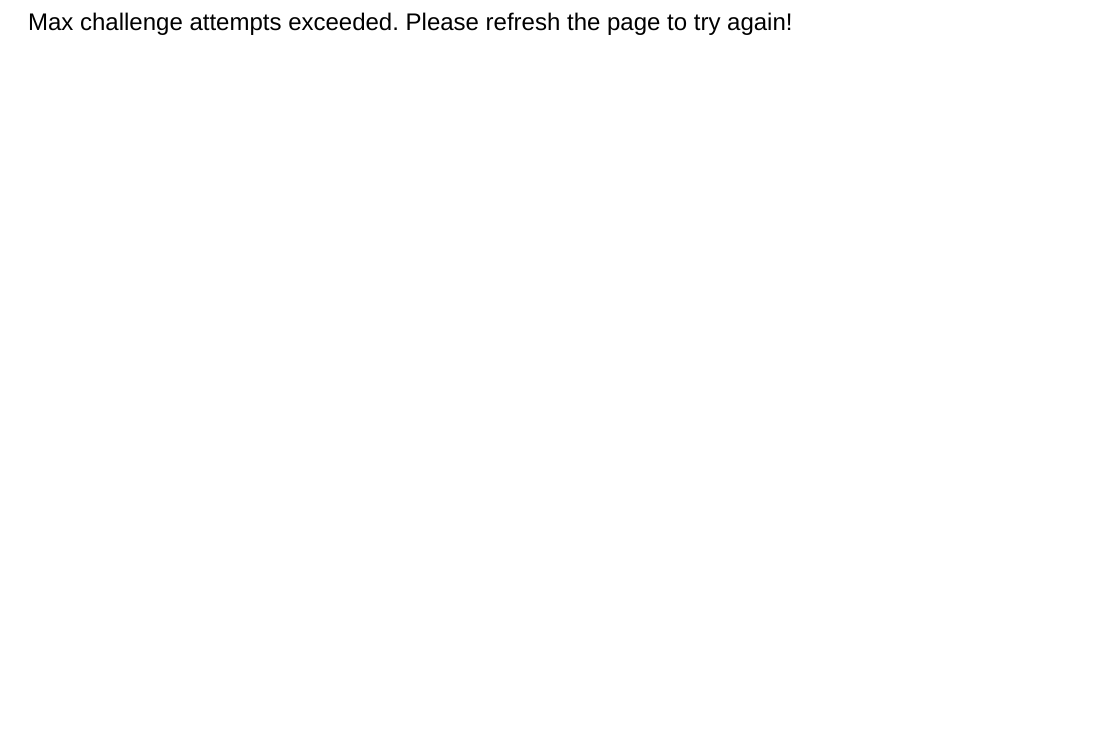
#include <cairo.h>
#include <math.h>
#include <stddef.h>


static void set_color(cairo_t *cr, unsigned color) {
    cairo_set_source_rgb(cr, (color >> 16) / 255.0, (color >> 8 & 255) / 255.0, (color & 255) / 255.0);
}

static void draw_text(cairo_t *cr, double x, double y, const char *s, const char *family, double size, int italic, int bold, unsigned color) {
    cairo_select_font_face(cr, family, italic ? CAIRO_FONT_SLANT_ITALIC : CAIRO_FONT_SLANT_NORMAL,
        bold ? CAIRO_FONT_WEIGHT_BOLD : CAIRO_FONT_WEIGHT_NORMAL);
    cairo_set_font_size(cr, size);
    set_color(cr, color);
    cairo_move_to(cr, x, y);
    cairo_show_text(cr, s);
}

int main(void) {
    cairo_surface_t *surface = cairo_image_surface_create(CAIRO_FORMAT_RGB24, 1117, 732);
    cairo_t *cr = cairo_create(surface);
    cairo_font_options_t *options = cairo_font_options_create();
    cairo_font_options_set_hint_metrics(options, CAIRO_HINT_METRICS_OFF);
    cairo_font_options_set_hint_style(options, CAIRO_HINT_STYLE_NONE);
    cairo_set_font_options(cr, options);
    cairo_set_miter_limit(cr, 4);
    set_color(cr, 0xFFFFFF);
    cairo_paint(cr);
    draw_text(cr, 28, 30, "Max challenge attempts exceeded. Please refresh the page to try again!", "Liberation Sans", 24, 0, 0, 0x000000);
    cairo_surface_write_to_png(surface, "output.png");
    cairo_font_options_destroy(options);
    cairo_destroy(cr);
    cairo_surface_destroy(surface);
    return 0;
}
